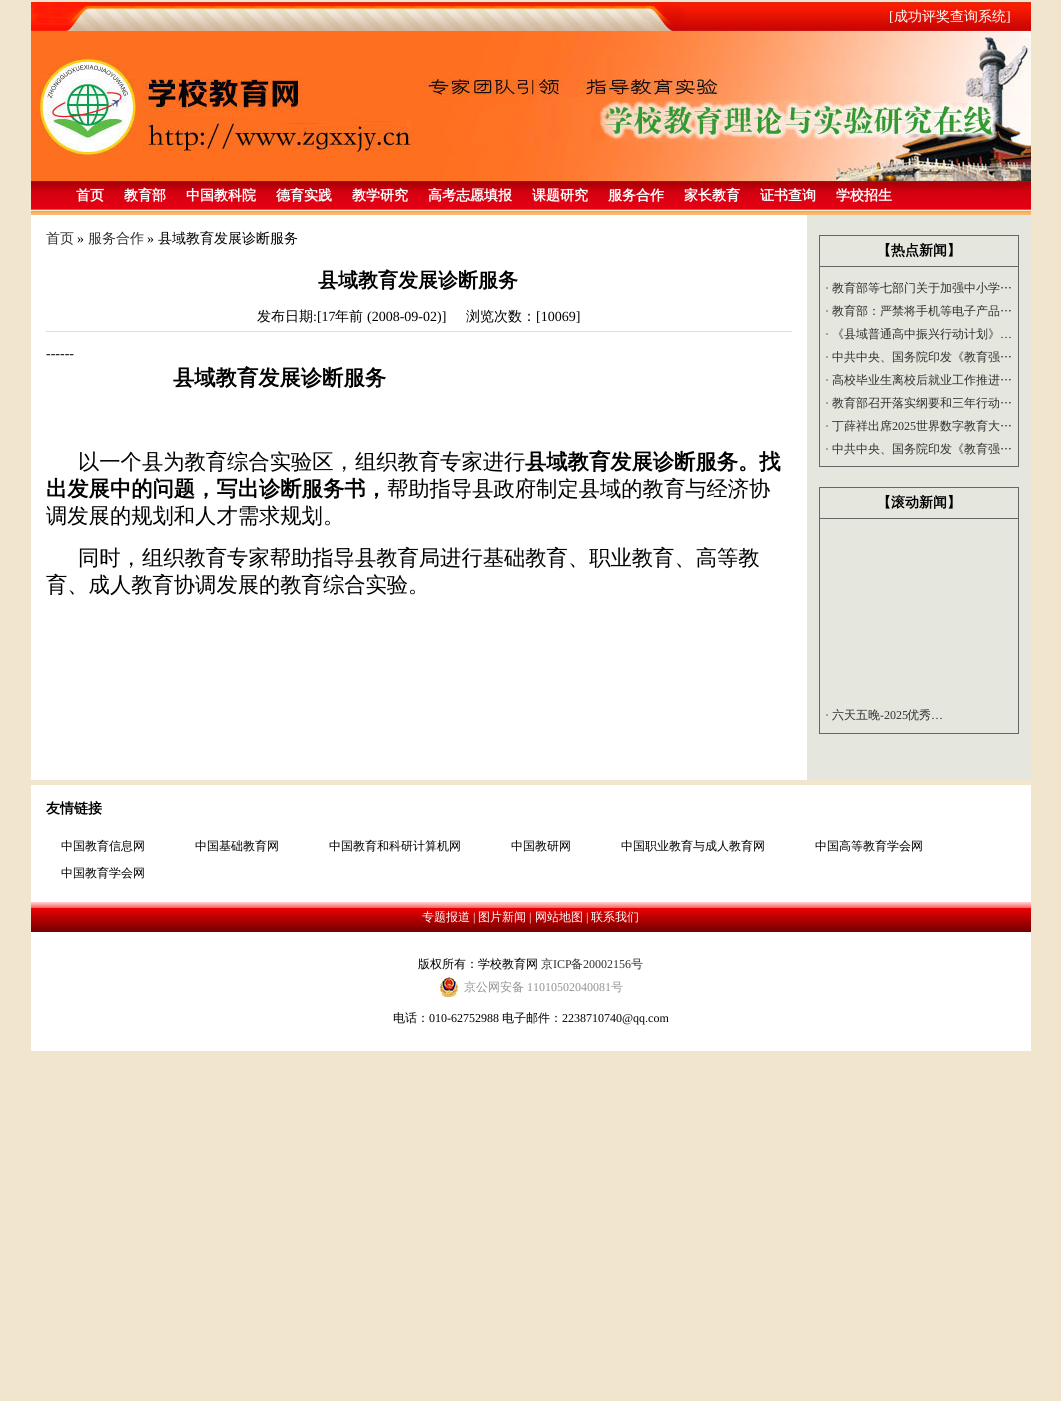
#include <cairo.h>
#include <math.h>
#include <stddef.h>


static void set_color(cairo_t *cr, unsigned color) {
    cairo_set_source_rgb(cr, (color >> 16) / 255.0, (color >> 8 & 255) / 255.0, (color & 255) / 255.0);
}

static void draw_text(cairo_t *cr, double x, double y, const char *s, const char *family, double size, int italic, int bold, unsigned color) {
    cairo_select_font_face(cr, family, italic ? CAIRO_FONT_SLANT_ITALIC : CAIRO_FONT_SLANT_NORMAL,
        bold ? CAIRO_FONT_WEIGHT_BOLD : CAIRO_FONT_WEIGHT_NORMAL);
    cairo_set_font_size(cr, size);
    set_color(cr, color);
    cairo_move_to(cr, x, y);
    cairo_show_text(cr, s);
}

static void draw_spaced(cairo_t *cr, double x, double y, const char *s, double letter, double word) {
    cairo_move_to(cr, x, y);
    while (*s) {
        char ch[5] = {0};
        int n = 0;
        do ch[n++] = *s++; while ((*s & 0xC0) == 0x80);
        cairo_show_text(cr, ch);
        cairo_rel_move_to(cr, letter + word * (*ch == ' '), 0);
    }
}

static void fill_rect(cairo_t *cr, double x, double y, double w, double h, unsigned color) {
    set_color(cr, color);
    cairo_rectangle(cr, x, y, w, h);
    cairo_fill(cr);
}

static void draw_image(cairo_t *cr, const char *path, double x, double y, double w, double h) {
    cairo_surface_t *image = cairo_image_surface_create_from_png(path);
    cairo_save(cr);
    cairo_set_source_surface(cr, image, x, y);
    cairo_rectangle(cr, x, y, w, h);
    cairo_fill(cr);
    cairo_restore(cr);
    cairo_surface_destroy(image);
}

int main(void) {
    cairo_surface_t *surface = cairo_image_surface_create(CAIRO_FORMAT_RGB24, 1061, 1401);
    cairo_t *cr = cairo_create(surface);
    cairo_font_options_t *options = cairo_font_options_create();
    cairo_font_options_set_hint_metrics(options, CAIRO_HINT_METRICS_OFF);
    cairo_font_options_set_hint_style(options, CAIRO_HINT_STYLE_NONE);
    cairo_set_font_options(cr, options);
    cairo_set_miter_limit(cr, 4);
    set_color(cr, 0xF1E5CD);
    cairo_paint(cr);
    draw_image(cr, "assets/img1.png", 31, 2, 1000, 29);
    draw_text(cr, 889, 21, "[", "Liberation Serif", 14, 0, 0, 0xFFFFFF);
    draw_text(cr, 894, 21, "成功评奖查询系统", "WenQuanYi Zen Hei Medium", 14, 0, 0, 0xFFFFFF);
    draw_text(cr, 1006, 21, "]", "Liberation Serif", 14, 0, 0, 0xFFFFFF);
    draw_image(cr, "assets/img2.png", 31, 31, 1000, 150);
    draw_image(cr, "assets/img3.png", 31, 181, 1000, 34);
    draw_text(cr, 76, 200, "首页", "WenQuanYi Zen Hei", 14, 0, 1, 0xFFFFFF);
    draw_text(cr, 124, 200, "教育部", "WenQuanYi Zen Hei", 14, 0, 1, 0xFFFFFF);
    draw_text(cr, 186, 200, "中国教科院", "WenQuanYi Zen Hei", 14, 0, 1, 0xFFFFFF);
    draw_text(cr, 276, 200, "德育实践", "WenQuanYi Zen Hei", 14, 0, 1, 0xFFFFFF);
    draw_text(cr, 352, 200, "教学研究", "WenQuanYi Zen Hei", 14, 0, 1, 0xFFFFFF);
    draw_text(cr, 428, 200, "高考志愿填报", "WenQuanYi Zen Hei", 14, 0, 1, 0xFFFFFF);
    draw_text(cr, 532, 200, "课题研究", "WenQuanYi Zen Hei", 14, 0, 1, 0xFFFFFF);
    draw_text(cr, 608, 200, "服务合作", "WenQuanYi Zen Hei", 14, 0, 1, 0xFFFFFF);
    draw_text(cr, 684, 200, "家长教育", "WenQuanYi Zen Hei", 14, 0, 1, 0xFFFFFF);
    draw_text(cr, 760, 200, "证书查询", "WenQuanYi Zen Hei", 14, 0, 1, 0xFFFFFF);
    draw_text(cr, 836, 200, "学校招生", "WenQuanYi Zen Hei", 14, 0, 1, 0xFFFFFF);
    fill_rect(cr, 807, 215, 224, 565, 0xE5E6DE);
    fill_rect(cr, 31, 215, 776, 565, 0xFFFFFF);
    draw_text(cr, 46, 243, "首页", "WenQuanYi Zen Hei Medium", 14, 0, 0, 0x303030);
    draw_text(cr, 77, 243, "»", "Liberation Serif", 14, 0, 0, 0x000000);
    draw_text(cr, 88, 243, "服务合作", "WenQuanYi Zen Hei Medium", 14, 0, 0, 0x303030);
    draw_text(cr, 147, 243, "»", "Liberation Serif", 14, 0, 0, 0x000000);
    draw_text(cr, 158, 243, "县域教育发展诊断服务", "WenQuanYi Zen Hei Medium", 14, 0, 0, 0x000000);
    draw_text(cr, 318, 287, "县域教育发展诊断服务", "WenQuanYi Zen Hei", 20, 0, 1, 0x000000);
    fill_rect(cr, 46, 331, 746, 1, 0xDDDDDD);
    draw_text(cr, 257, 321, "发布日期", "WenQuanYi Zen Hei Medium", 14, 0, 0, 0x000000);
    draw_text(cr, 313, 321, ":[17", "Liberation Serif", 14, 0, 0, 0x000000);
    draw_text(cr, 335, 321, "年前", "WenQuanYi Zen Hei Medium", 14, 0, 0, 0x000000);
    draw_text(cr, 367, 321, "(2008-09-02)]", "Liberation Serif", 14, 0, 0, 0x000000);
    draw_text(cr, 466, 321, "浏览次数：", "WenQuanYi Zen Hei Medium", 14, 0, 0, 0x000000);
    draw_text(cr, 536, 321, "[10069]", "Liberation Serif", 14, 0, 0, 0x000000);
    draw_text(cr, 46, 358, "------", "Liberation Serif", 14, 0, 0, 0x000000);
    draw_text(cr, 173, 385, "县域教育发展诊断服务", "WenQuanYi Zen Hei", 21.3, 0, 1, 0x000000);
    draw_text(cr, 78, 469, "以一个县为教育综合实验区，组织教育专家进行", "WenQuanYi Zen Hei Medium", 21.3, 0, 0, 0x000000);
    draw_text(cr, 525, 469, "县域教育发展诊断服务。找", "WenQuanYi Zen Hei", 21.3, 0, 1, 0x000000);
    draw_text(cr, 46, 496, "出发展中的问题，写出诊断服务书，", "WenQuanYi Zen Hei", 21.3, 0, 1, 0x000000);
    draw_text(cr, 387, 496, "帮助指导县政府制定县域的教育与经济协", "WenQuanYi Zen Hei Medium", 21.3, 0, 0, 0x000000);
    draw_text(cr, 46, 523, "调发展的规划和人才需求规划。", "WenQuanYi Zen Hei Medium", 21.3, 0, 0, 0x000000);
    draw_text(cr, 78, 565, "同时，组织教育专家帮助指导县教育局进行基础教育、职业教育、高等教", "WenQuanYi Zen Hei Medium", 21.3, 0, 0, 0x000000);
    draw_text(cr, 46, 592, "育、成人教育协调发展的教育综合实验。", "WenQuanYi Zen Hei Medium", 21.3, 0, 0, 0x000000);
    cairo_rectangle(cr, 819.5, 235.5, 199, 231);
    set_color(cr, 0x666666);
    cairo_set_line_width(cr, 1);
    cairo_stroke(cr);
    fill_rect(cr, 820, 266, 198, 1, 0x666666);
    draw_text(cr, 877, 255, "【热点新闻】", "WenQuanYi Zen Hei", 14, 0, 1, 0x000000);
    draw_text(cr, 825, 292, "·", "Liberation Serif", 12, 0, 0, 0x303030);
    draw_text(cr, 832, 292, "教育部等七部门关于加强中小学…", "WenQuanYi Zen Hei Medium", 12, 0, 0, 0x303030);
    draw_text(cr, 825, 315, "·", "Liberation Serif", 12, 0, 0, 0x303030);
    cairo_select_font_face(cr, "WenQuanYi Zen Hei Medium", CAIRO_FONT_SLANT_NORMAL, CAIRO_FONT_WEIGHT_NORMAL);
    draw_spaced(cr, 832, 315, "教育部：严禁将手机等电子产品…", 0, -1);
    draw_text(cr, 825, 338, "·", "Liberation Serif", 12, 0, 0, 0x303030);
    draw_text(cr, 832, 338, "《县域普通高中振兴行动计划》", "WenQuanYi Zen Hei Medium", 12, 0, 0, 0x303030);
    draw_text(cr, 1000, 338, "…", "Liberation Serif", 12, 0, 0, 0x303030);
    draw_text(cr, 825, 361, "·", "Liberation Serif", 12, 0, 0, 0x303030);
    draw_text(cr, 832, 361, "中共中央、国务院印发《教育强…", "WenQuanYi Zen Hei Medium", 12, 0, 0, 0x303030);
    draw_text(cr, 825, 384, "·", "Liberation Serif", 12, 0, 0, 0x303030);
    draw_text(cr, 832, 384, "高校毕业生离校后就业工作推进…", "WenQuanYi Zen Hei Medium", 12, 0, 0, 0x303030);
    draw_text(cr, 825, 407, "·", "Liberation Serif", 12, 0, 0, 0x303030);
    draw_text(cr, 832, 407, "教育部召开落实纲要和三年行动…", "WenQuanYi Zen Hei Medium", 12, 0, 0, 0x303030);
    draw_text(cr, 825, 430, "·", "Liberation Serif", 12, 0, 0, 0x303030);
    draw_text(cr, 832, 430, "丁薛祥出席", "WenQuanYi Zen Hei Medium", 12, 0, 0, 0x303030);
    draw_text(cr, 892, 430, "2025", "Liberation Serif", 12, 0, 0, 0x303030);
    draw_text(cr, 916, 430, "世界数字教育大…", "WenQuanYi Zen Hei Medium", 12, 0, 0, 0x303030);
    draw_text(cr, 825, 453, "·", "Liberation Serif", 12, 0, 0, 0x303030);
    draw_text(cr, 832, 453, "中共中央、国务院印发《教育强…", "WenQuanYi Zen Hei Medium", 12, 0, 0, 0x303030);
    cairo_rectangle(cr, 819.5, 487.5, 199, 246);
    set_color(cr, 0x666666);
    cairo_stroke(cr);
    fill_rect(cr, 820, 518, 198, 1, 0x666666);
    draw_text(cr, 877, 507, "【滚动新闻】", "WenQuanYi Zen Hei", 14, 0, 1, 0x000000);
    draw_text(cr, 825, 719, "·", "Liberation Serif", 12, 0, 0, 0x303030);
    draw_text(cr, 832, 719, "六天五晚", "WenQuanYi Zen Hei Medium", 12, 0, 0, 0x303030);
    draw_text(cr, 880, 719, "-2025", "Liberation Serif", 12, 0, 0, 0x303030);
    draw_text(cr, 907, 719, "优秀", "WenQuanYi Zen Hei Medium", 12, 0, 0, 0x303030);
    draw_text(cr, 931, 719, "…", "Liberation Serif", 12, 0, 0, 0x303030);
    fill_rect(cr, 31, 785, 1000, 266, 0xFFFFFF);
    draw_text(cr, 46, 813, "友情链接", "WenQuanYi Zen Hei", 14, 0, 1, 0x000000);
    draw_text(cr, 61, 850, "中国教育信息网", "WenQuanYi Zen Hei Medium", 12, 0, 0, 0x000000);
    draw_text(cr, 195, 850, "中国基础教育网", "WenQuanYi Zen Hei Medium", 12, 0, 0, 0x000000);
    draw_text(cr, 329, 850, "中国教育和科研计算机网", "WenQuanYi Zen Hei Medium", 12, 0, 0, 0x000000);
    draw_text(cr, 511, 850, "中国教研网", "WenQuanYi Zen Hei Medium", 12, 0, 0, 0x000000);
    draw_text(cr, 621, 850, "中国职业教育与成人教育网", "WenQuanYi Zen Hei Medium", 12, 0, 0, 0x000000);
    draw_text(cr, 815, 850, "中国高等教育学会网", "WenQuanYi Zen Hei Medium", 12, 0, 0, 0x000000);
    draw_text(cr, 61, 877, "中国教育学会网", "WenQuanYi Zen Hei Medium", 12, 0, 0, 0x000000);
    draw_image(cr, "assets/img4.png", 31, 902, 1000, 30);
    draw_text(cr, 422, 921, "专题报道", "WenQuanYi Zen Hei Medium", 12, 0, 0, 0xFFFFFF);
    draw_text(cr, 473, 921, "|", "Liberation Serif", 12, 0, 0, 0xFFFFFF);
    draw_text(cr, 478, 921, "图片新闻", "WenQuanYi Zen Hei Medium", 12, 0, 0, 0xFFFFFF);
    draw_text(cr, 529, 921, "|", "Liberation Serif", 12, 0, 0, 0xFFFFFF);
    draw_text(cr, 535, 921, "网站地图", "WenQuanYi Zen Hei Medium", 12, 0, 0, 0xFFFFFF);
    draw_text(cr, 586, 921, "|", "Liberation Serif", 12, 0, 0, 0xFFFFFF);
    draw_text(cr, 591, 921, "联系我们", "WenQuanYi Zen Hei Medium", 12, 0, 0, 0xFFFFFF);
    draw_text(cr, 418, 968, "版权所有：学校教育网", "WenQuanYi Zen Hei Medium", 12, 0, 0, 0x000000);
    draw_text(cr, 541, 968, "京", "WenQuanYi Zen Hei Medium", 12, 0, 0, 0x303030);
    draw_text(cr, 553, 968, "ICP", "Liberation Serif", 12, 0, 0, 0x303030);
    draw_text(cr, 571, 968, "备", "WenQuanYi Zen Hei Medium", 12, 0, 0, 0x303030);
    draw_text(cr, 583, 968, "20002156", "Liberation Serif", 12, 0, 0, 0x303030);
    draw_text(cr, 631, 968, "号", "WenQuanYi Zen Hei Medium", 12, 0, 0, 0x303030);
    draw_image(cr, "assets/img5.png", 440, 977, 18, 20);
    draw_text(cr, 464, 991, "京公网安备", "WenQuanYi Zen Hei Medium", 12, 0, 0, 0x939393);
    draw_text(cr, 527, 991, "11010502040081", "Liberation Serif", 12, 0, 0, 0x939393);
    draw_text(cr, 611, 991, "号", "WenQuanYi Zen Hei Medium", 12, 0, 0, 0x939393);
    draw_text(cr, 393, 1022, "电话：", "WenQuanYi Zen Hei Medium", 12, 0, 0, 0x000000);
    draw_text(cr, 429, 1022, "010-62752988", "Liberation Serif", 12, 0, 0, 0x000000);
    draw_text(cr, 502, 1022, "电子邮件：", "WenQuanYi Zen Hei Medium", 12, 0, 0, 0x000000);
    draw_text(cr, 562, 1022, "2238710740@qq.com", "Liberation Serif", 12, 0, 0, 0x000000);
    cairo_surface_write_to_png(surface, "output.png");
    cairo_font_options_destroy(options);
    cairo_destroy(cr);
    cairo_surface_destroy(surface);
    return 0;
}
